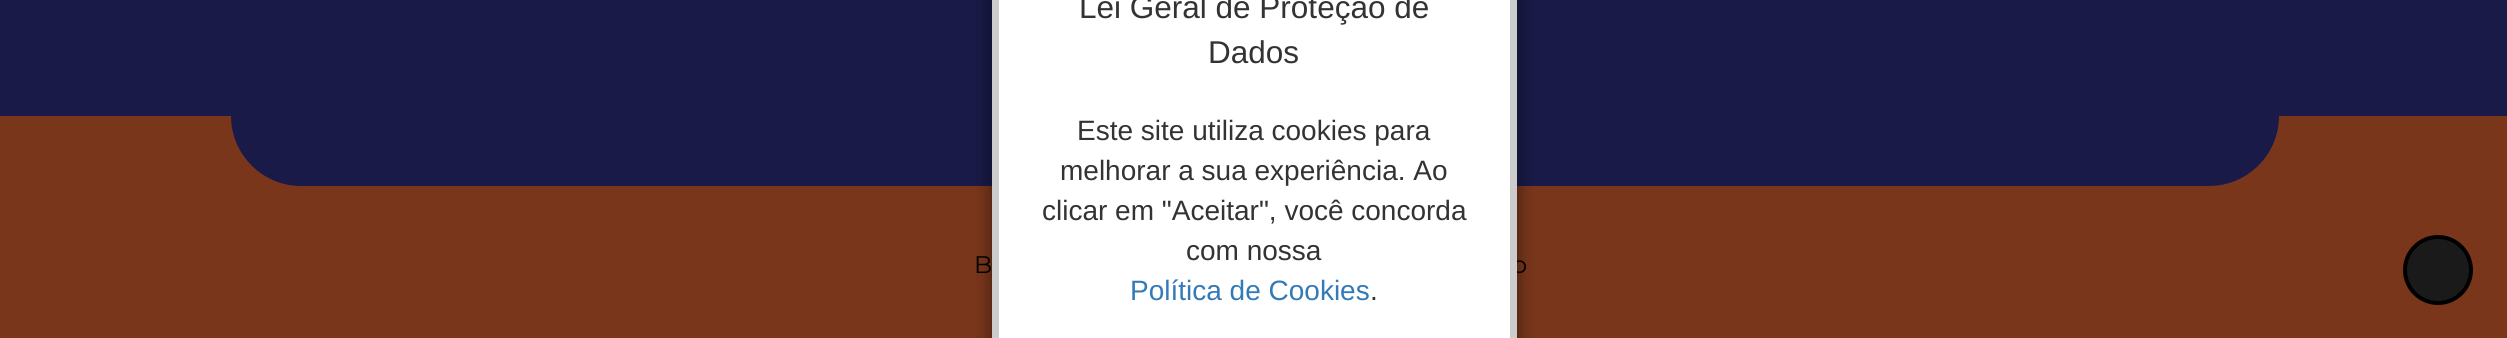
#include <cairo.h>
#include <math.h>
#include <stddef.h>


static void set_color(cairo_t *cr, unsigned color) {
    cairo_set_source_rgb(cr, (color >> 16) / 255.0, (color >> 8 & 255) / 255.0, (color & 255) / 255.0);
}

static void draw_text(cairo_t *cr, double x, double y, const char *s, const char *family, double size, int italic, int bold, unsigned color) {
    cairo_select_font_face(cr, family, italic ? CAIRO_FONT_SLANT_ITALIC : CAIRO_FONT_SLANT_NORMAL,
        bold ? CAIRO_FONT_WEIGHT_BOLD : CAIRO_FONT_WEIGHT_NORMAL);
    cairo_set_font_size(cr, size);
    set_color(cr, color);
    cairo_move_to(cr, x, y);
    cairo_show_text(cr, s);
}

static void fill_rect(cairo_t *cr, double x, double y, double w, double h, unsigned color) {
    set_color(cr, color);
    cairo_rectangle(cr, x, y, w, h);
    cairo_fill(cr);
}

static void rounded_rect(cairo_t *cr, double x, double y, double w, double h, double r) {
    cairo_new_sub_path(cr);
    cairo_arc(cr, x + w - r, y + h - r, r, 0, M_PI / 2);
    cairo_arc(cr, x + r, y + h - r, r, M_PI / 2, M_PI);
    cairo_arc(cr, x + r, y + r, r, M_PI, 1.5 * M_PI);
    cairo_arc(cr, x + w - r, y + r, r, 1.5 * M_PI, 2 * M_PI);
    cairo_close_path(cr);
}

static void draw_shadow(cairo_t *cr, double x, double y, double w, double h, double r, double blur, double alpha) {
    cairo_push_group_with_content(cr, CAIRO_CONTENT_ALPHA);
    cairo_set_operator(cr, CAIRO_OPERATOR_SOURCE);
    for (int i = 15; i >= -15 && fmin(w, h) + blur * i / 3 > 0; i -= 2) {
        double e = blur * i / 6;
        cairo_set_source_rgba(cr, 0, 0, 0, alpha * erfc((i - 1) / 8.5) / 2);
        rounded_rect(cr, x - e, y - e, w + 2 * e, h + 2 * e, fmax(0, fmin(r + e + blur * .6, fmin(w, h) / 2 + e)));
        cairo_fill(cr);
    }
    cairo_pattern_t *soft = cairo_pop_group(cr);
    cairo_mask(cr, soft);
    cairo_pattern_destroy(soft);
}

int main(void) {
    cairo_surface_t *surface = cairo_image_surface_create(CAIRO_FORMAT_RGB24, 2507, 338);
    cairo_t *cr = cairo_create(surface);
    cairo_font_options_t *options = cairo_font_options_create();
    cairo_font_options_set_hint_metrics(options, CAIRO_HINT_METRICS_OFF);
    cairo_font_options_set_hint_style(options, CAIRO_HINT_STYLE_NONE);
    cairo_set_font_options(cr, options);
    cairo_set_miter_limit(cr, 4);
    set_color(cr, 0x191A47);
    cairo_paint(cr);
    fill_rect(cr, 0, 116, 2507, 222, 0x79361B);
    set_color(cr, 0x191A47);
    cairo_new_path(cr);
    cairo_move_to(cr, 231, 116);
    cairo_line_to(cr, 2279, 116);
    cairo_curve_to(cr, 2279, 154.5, 2247.5, 186, 2209, 186);
    cairo_line_to(cr, 301, 186);
    cairo_curve_to(cr, 262.5, 186, 231, 154.5, 231, 116);
    cairo_close_path(cr);
    cairo_fill(cr);
    set_color(cr, 0x000000);
    draw_shadow(cr, 992, -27, 525, 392, 0, 9, 0.5);
    draw_text(cr, 1512, 273, "o", "Montserrat", 24, 0, 0, 0x000000);
    set_color(cr, 0xFFFFFF);
    cairo_rectangle(cr, 995.5, -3.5, 518, 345);
    cairo_fill_preserve(cr);
    set_color(cr, 0xCCCCCC);
    cairo_set_line_width(cr, 7);
    cairo_stroke(cr);
    draw_text(cr, 1079, 18, "Lei Geral de Proteção de", "Liberation Sans", 31.5, 0, 0, 0x333333);
    draw_text(cr, 1208, 63, "Dados", "Liberation Sans", 31.5, 0, 0, 0x333333);
    draw_text(cr, 1077, 140, "Este site utiliza cookies para", "Liberation Sans", 28, 0, 0, 0x333333);
    draw_text(cr, 1060, 180, "melhorar a sua experiência. Ao", "Liberation Sans", 28, 0, 0, 0x333333);
    draw_text(cr, 1042, 220, "clicar em \"Aceitar\", você concorda", "Liberation Sans", 28, 0, 0, 0x333333);
    draw_text(cr, 1186, 260, "com nossa", "Liberation Sans", 28, 0, 0, 0x333333);
    draw_text(cr, 1130, 300, "Política de Cookies", "Liberation Sans", 28, 0, 0, 0x337AB7);
    draw_text(cr, 1370, 300, ".", "Liberation Sans", 28, 0, 0, 0x333333);
    draw_text(cr, 974, 273, "B", "Montserrat", 24, 0, 0, 0x000000);
    set_color(cr, 0x1A1A1A);
    cairo_new_path(cr);
    cairo_arc(cr, 2438, 270, 33, 0, 2 * M_PI);
    cairo_fill_preserve(cr);
    set_color(cr, 0x000000);
    cairo_set_line_width(cr, 4);
    cairo_stroke(cr);
    cairo_surface_write_to_png(surface, "output.png");
    cairo_font_options_destroy(options);
    cairo_destroy(cr);
    cairo_surface_destroy(surface);
    return 0;
}
